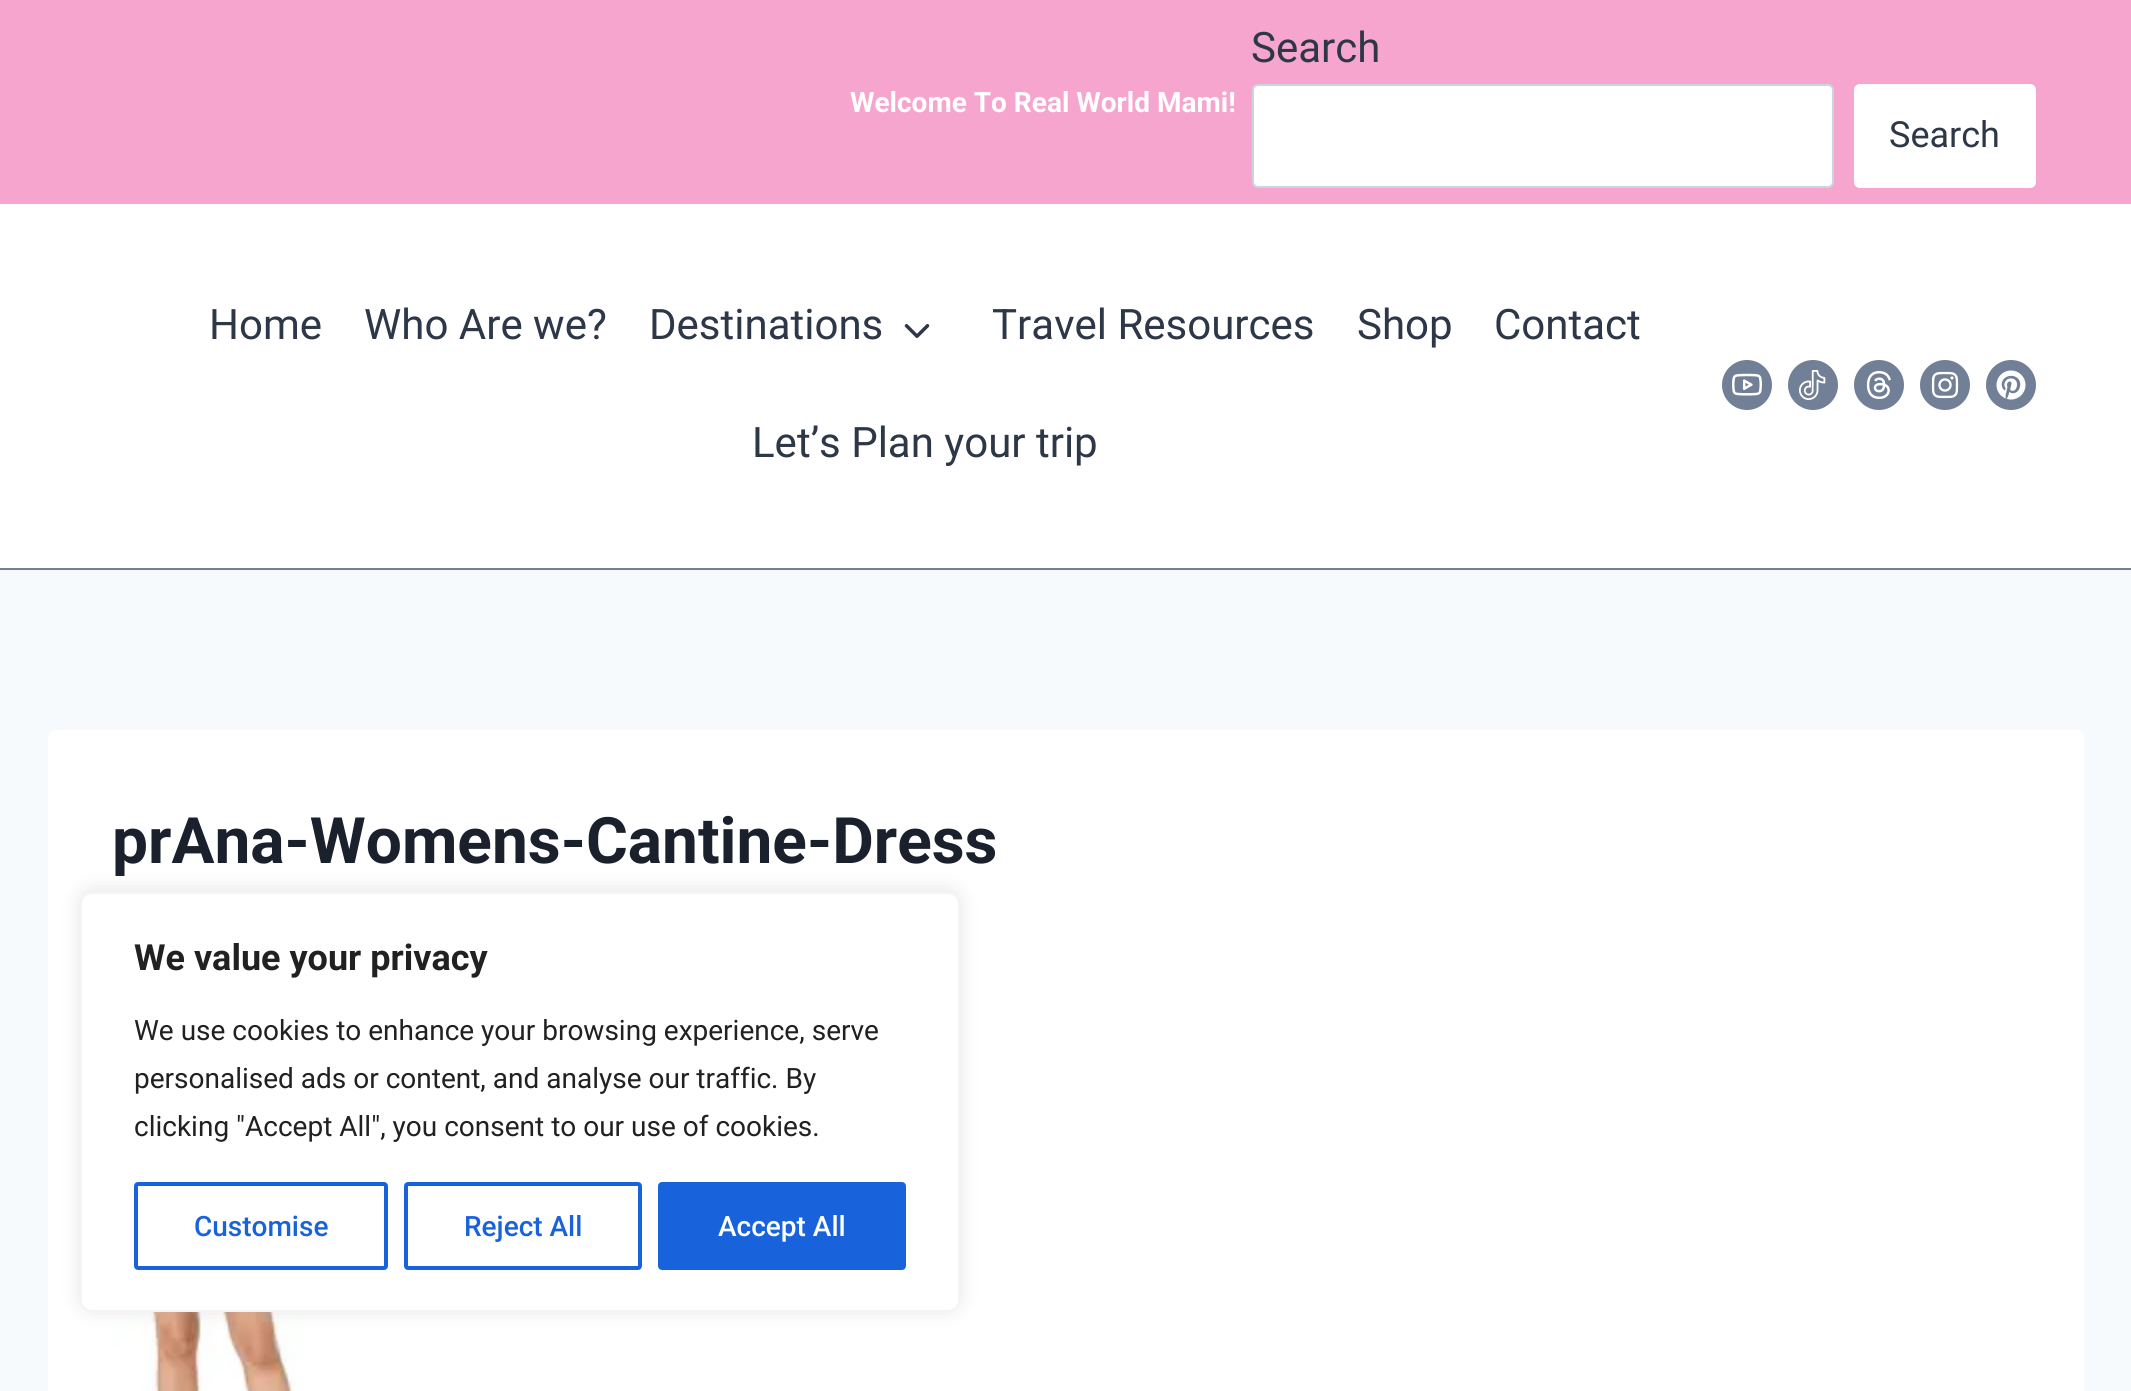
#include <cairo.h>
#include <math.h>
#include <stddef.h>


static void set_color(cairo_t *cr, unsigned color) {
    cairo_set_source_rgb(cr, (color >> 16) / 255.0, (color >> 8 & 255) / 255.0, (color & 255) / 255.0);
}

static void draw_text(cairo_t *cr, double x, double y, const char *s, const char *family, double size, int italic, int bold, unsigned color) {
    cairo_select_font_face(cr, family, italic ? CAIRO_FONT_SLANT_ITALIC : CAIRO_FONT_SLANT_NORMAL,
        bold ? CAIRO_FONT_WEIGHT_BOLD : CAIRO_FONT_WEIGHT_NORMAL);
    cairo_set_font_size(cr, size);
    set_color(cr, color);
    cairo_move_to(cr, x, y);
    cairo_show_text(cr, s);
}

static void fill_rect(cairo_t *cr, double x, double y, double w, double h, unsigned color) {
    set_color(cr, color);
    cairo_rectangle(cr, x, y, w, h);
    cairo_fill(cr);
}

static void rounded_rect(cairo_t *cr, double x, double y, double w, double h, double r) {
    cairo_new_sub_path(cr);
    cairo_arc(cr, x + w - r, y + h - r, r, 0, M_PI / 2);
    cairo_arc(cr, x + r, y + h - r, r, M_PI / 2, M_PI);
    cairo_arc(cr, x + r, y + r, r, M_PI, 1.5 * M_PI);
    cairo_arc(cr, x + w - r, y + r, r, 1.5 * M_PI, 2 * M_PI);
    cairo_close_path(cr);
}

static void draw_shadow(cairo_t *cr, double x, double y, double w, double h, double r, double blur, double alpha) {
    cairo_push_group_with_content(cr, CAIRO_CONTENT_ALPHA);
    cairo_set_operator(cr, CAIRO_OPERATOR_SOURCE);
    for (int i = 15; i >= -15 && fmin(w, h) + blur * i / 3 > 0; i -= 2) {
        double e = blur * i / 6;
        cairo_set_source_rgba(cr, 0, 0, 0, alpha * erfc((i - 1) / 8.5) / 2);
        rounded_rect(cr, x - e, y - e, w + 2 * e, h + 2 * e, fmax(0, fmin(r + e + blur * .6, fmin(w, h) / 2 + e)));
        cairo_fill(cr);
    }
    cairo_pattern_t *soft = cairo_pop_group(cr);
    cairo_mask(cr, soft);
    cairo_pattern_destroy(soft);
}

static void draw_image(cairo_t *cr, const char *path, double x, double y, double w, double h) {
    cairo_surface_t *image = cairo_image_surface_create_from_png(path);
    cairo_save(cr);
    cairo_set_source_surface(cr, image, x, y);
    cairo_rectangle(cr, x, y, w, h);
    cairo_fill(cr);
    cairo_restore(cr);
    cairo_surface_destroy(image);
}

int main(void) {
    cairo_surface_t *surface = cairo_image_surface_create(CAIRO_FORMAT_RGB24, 2131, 1391);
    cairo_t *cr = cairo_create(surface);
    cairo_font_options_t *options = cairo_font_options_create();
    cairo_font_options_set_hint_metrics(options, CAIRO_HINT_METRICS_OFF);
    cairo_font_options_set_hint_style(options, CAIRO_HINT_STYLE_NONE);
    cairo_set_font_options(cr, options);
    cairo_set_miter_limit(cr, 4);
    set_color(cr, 0xF7FAFC);
    cairo_paint(cr);
    fill_rect(cr, 0, 0, 2131, 204, 0xF6A6CE);
    draw_text(cr, 850, 112, "Welcome To Real World Mami!", "Roboto", 28, 0, 1, 0xFFFFFF);
    draw_text(cr, 1251, 62, "Search", "Roboto", 42, 0, 0, 0x2D3748);
    set_color(cr, 0xFFFFFF);
    rounded_rect(cr, 1253, 85, 580, 102, 5);
    cairo_fill_preserve(cr);
    set_color(cr, 0xCBD5E0);
    cairo_stroke(cr);
    set_color(cr, 0xFFFFFF);
    rounded_rect(cr, 1854, 84, 182, 104, 6);
    cairo_fill(cr);
    draw_text(cr, 1889, 147, "Search", "Roboto", 36, 0, 0, 0x2D3748);
    fill_rect(cr, 0, 204, 2131, 364, 0xFFFFFF);
    fill_rect(cr, 0, 568, 2131, 2, 0x718096);
    draw_text(cr, 209, 339, "Home", "Roboto", 42, 0, 0, 0x2D3748);
    draw_text(cr, 364, 339, "Who Are we?", "Roboto", 42, 0, 0, 0x2D3748);
    draw_text(cr, 649, 339, "Destinations", "Roboto", 42, 0, 0, 0x2D3748);
    draw_image(cr, "assets/img1.png", 904, 324, 26, 14);
    draw_text(cr, 992, 339, "Travel Resources", "Roboto", 42, 0, 0, 0x2D3748);
    draw_text(cr, 1357, 339, "Shop", "Roboto", 42, 0, 0, 0x2D3748);
    draw_text(cr, 1494, 339, "Contact", "Roboto", 42, 0, 0, 0x2D3748);
    draw_text(cr, 752, 457, "Let’s Plan your trip", "Roboto", 42, 0, 0, 0x2D3748);
    set_color(cr, 0x718096);
    cairo_new_path(cr);
    cairo_arc(cr, 1747, 385, 25, 0, 2 * M_PI);
    cairo_fill(cr);
    draw_image(cr, "assets/img2.png", 1732, 373, 30, 23);
    cairo_arc(cr, 1813, 385, 25, 0, 2 * M_PI);
    cairo_fill(cr);
    draw_image(cr, "assets/img3.png", 1799, 370, 27, 30);
    cairo_arc(cr, 1879, 385, 25, 0, 2 * M_PI);
    cairo_fill(cr);
    draw_image(cr, "assets/img4.png", 1866, 370, 25, 30);
    cairo_arc(cr, 1945, 385, 25, 0, 2 * M_PI);
    cairo_fill(cr);
    draw_image(cr, "assets/img5.png", 1931, 371, 28, 28);
    cairo_arc(cr, 2011, 385, 25, 0, 2 * M_PI);
    cairo_fill(cr);
    draw_image(cr, "assets/img6.png", 1996, 370, 30, 30);
    set_color(cr, 0xFFFFFF);
    rounded_rect(cr, 48, 730, 2036, 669, 8);
    cairo_fill(cr);
    draw_text(cr, 112, 863, "prAna-Womens-Cantine-Dress", "Roboto", 64, 0, 1, 0x1A202C);
    draw_image(cr, "assets/img7.png", 112, 1312, 193, 79);
    set_color(cr, 0xACABAB);
    draw_shadow(cr, 80, 890, 880, 420, 12, 10, 0.3);
    set_color(cr, 0xFFFFFF);
    rounded_rect(cr, 81, 893, 878, 418, 11);
    cairo_fill_preserve(cr);
    set_color(cr, 0xF4F4F4);
    cairo_stroke(cr);
    draw_text(cr, 134, 970, "We value your privacy", "Roboto", 36, 0, 1, 0x212121);
    draw_text(cr, 134, 1040, "We use cookies to enhance your browsing experience, serve", "Roboto", 28, 0, 0, 0x212121);
    draw_text(cr, 134, 1088, "personalised ads or content, and analyse our traffic. By", "Roboto", 28, 0, 0, 0x212121);
    draw_text(cr, 134, 1136, "clicking \"Accept All\", you consent to our use of cookies.", "Roboto", 28, 0, 0, 0x212121);
    rounded_rect(cr, 136, 1184, 250, 84, 2);
    set_color(cr, 0x1863DC);
    cairo_set_line_width(cr, 4);
    cairo_stroke(cr);
    draw_text(cr, 194, 1236, "Customise", "Roboto Medium", 28, 0, 0, 0x1863DC);
    rounded_rect(cr, 406, 1184, 234, 84, 2);
    cairo_stroke(cr);
    draw_text(cr, 464, 1236, "Reject All", "Roboto Medium", 28, 0, 0, 0x1863DC);
    rounded_rect(cr, 660, 1184, 244, 84, 2);
    cairo_fill_preserve(cr);
    cairo_stroke(cr);
    draw_text(cr, 718, 1236, "Accept All", "Roboto Medium", 28, 0, 0, 0xFFFFFF);
    cairo_surface_write_to_png(surface, "output.png");
    cairo_font_options_destroy(options);
    cairo_destroy(cr);
    cairo_surface_destroy(surface);
    return 0;
}
